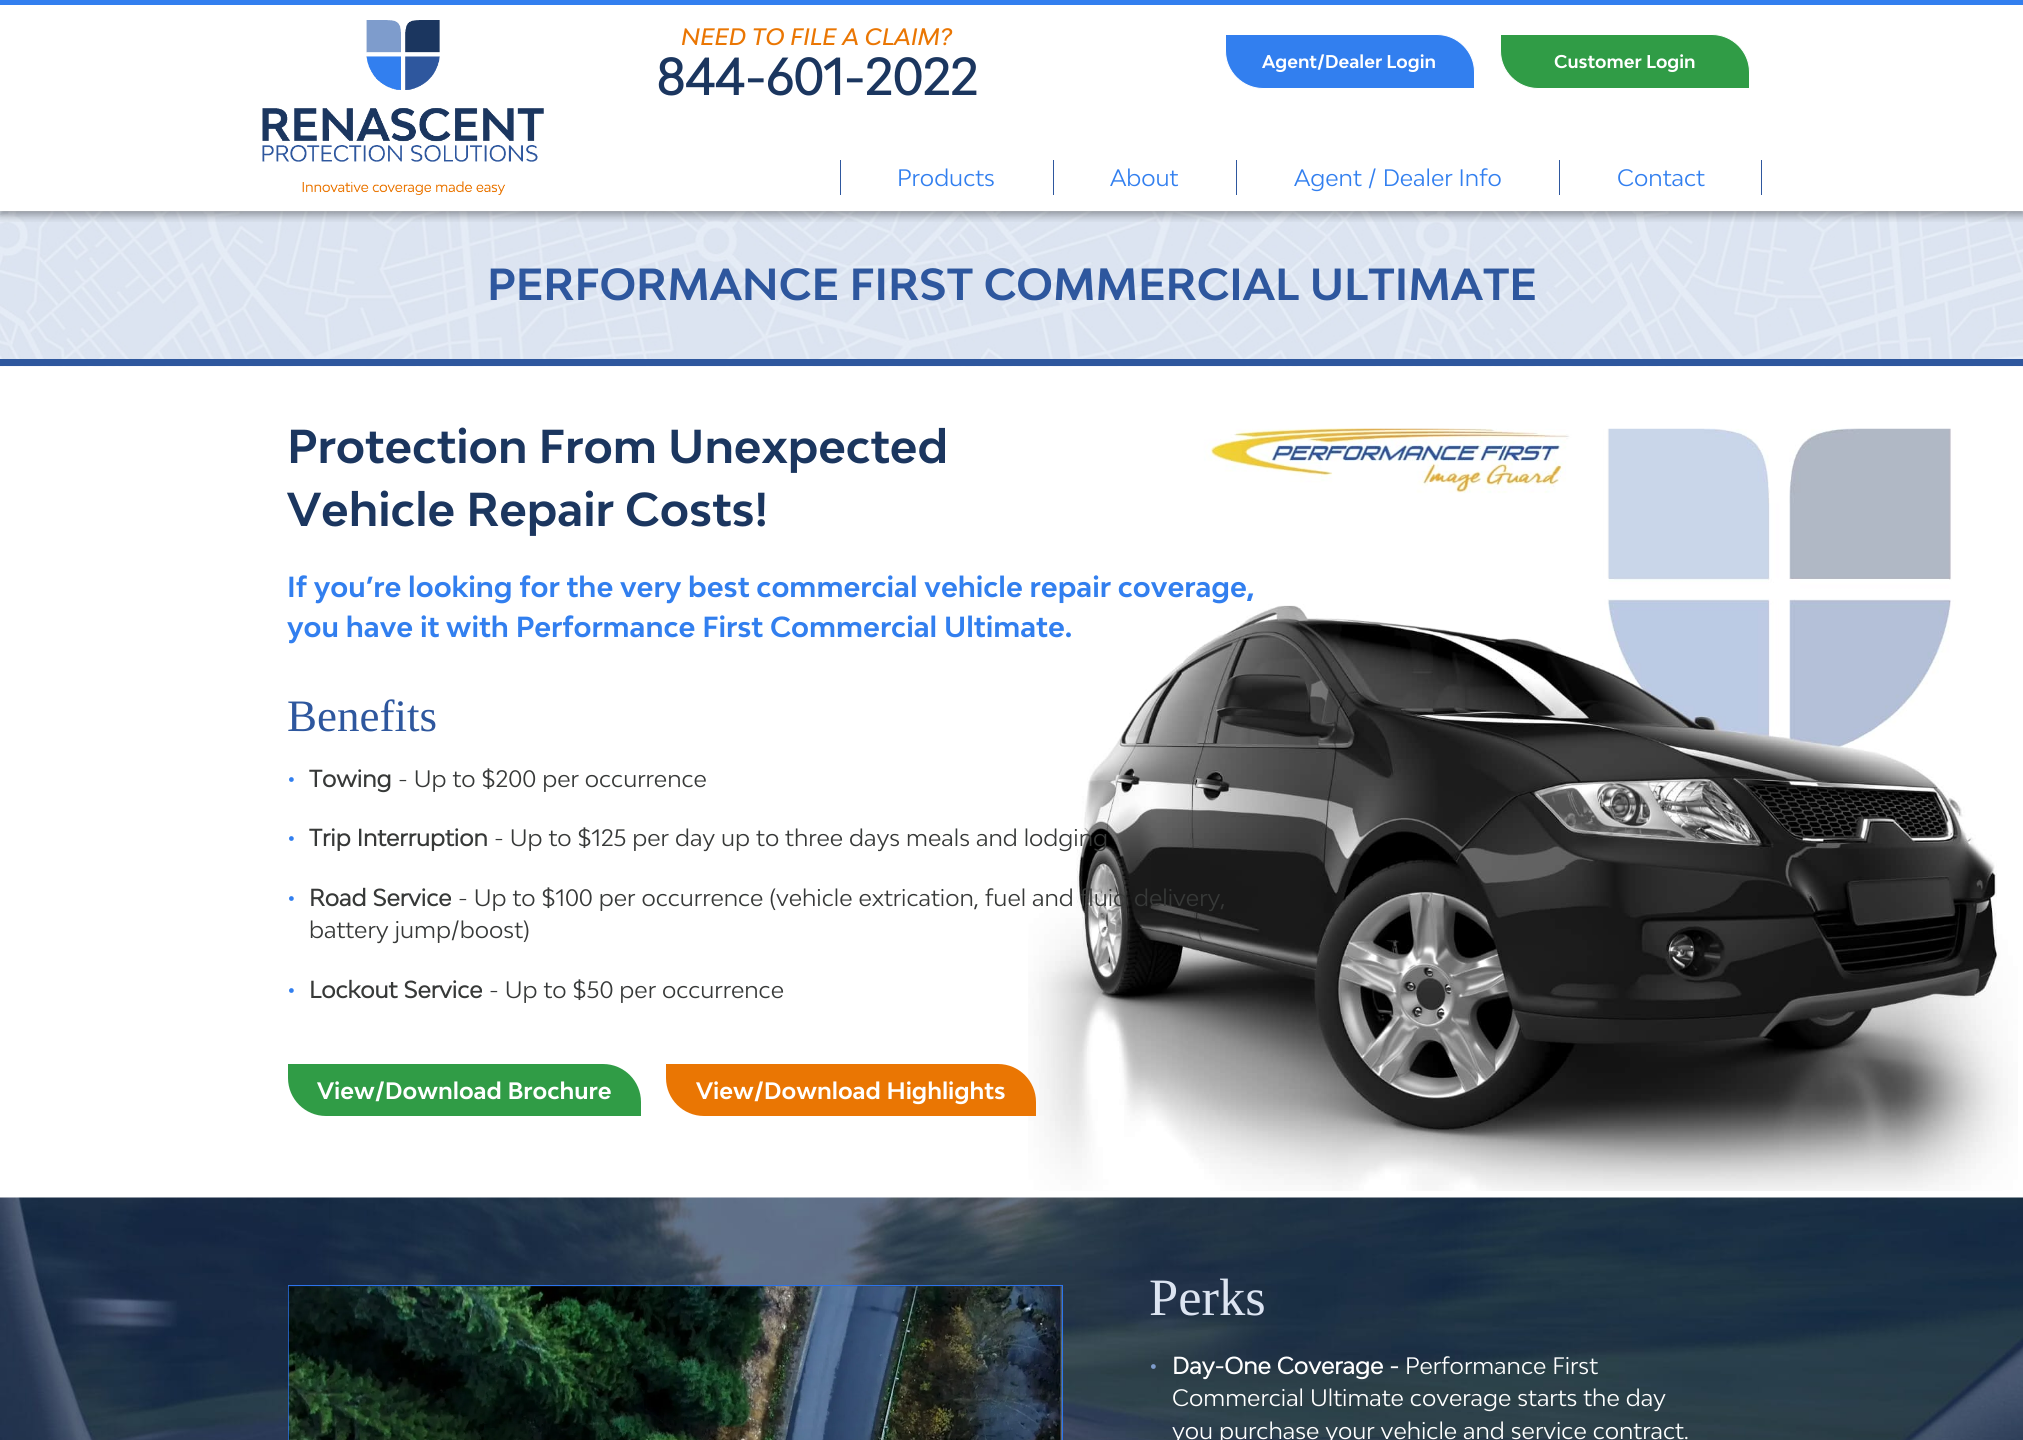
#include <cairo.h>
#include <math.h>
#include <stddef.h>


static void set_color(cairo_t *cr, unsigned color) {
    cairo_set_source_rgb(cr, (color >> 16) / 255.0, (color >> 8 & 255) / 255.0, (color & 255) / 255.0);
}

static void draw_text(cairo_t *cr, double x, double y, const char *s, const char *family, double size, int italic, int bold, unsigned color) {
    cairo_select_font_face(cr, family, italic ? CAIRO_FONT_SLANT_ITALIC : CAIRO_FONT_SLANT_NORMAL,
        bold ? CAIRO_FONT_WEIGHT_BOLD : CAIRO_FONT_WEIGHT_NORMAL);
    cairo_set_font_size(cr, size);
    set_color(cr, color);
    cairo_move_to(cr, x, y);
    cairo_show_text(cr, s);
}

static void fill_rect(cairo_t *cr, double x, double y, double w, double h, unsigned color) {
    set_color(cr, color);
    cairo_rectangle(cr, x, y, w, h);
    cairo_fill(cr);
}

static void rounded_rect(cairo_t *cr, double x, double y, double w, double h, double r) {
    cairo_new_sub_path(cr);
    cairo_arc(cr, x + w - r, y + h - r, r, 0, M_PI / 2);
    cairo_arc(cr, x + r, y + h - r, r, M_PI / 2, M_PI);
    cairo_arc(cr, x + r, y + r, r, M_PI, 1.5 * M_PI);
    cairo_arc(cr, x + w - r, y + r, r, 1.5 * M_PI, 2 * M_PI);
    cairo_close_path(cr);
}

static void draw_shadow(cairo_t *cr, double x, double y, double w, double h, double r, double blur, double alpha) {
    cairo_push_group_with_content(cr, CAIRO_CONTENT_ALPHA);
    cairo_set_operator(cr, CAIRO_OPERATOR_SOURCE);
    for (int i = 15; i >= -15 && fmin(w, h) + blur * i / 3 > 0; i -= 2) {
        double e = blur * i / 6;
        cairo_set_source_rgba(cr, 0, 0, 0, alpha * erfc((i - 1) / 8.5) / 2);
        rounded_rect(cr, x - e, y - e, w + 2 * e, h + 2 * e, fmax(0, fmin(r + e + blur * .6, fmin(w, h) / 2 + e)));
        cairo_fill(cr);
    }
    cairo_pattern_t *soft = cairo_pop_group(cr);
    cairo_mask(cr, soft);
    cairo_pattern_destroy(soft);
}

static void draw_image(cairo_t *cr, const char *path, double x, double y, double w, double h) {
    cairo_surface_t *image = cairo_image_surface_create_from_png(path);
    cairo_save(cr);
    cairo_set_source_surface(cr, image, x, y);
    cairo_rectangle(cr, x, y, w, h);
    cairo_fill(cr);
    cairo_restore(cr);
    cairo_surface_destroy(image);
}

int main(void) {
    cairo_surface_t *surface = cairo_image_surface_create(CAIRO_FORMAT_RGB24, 2023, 1440);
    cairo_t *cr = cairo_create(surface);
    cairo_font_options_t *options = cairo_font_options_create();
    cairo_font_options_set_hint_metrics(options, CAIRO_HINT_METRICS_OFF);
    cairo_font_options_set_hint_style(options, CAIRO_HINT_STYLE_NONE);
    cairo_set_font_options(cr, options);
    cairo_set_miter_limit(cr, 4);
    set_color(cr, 0xFFFFFF);
    cairo_paint(cr);
    draw_image(cr, "assets/img2.png", 0, 211, 2023, 156);
    cairo_save(cr);
    cairo_rectangle(cr, 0, 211, 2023, 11);
    cairo_clip(cr);
    set_color(cr, 0x000000);
    draw_shadow(cr, 0, 4, 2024, 211, 0, 4.5, 0.37);
    cairo_restore(cr);
    fill_rect(cr, 0, 0, 2023, 5, 0x327FEF);
    draw_image(cr, "assets/img1.png", 262, 20, 282, 175);
    draw_text(cr, 681, 45, "NEED TO FILE A CLAIM?", "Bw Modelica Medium", 22.5, 1, 0, 0xEA7603);
    draw_text(cr, 656, 95, "844-601-2022", "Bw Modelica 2", 48.75, 0, 1, 0x1B365F);
    set_color(cr, 0x327FEF);
    cairo_new_path(cr);
    cairo_move_to(cr, 1225.5, 34.5);
    cairo_line_to(cr, 1437, 34.5);
    cairo_curve_to(cr, 1457.5, 34.5, 1474.5, 51.5, 1474.5, 72);
    cairo_line_to(cr, 1474.5, 88.5);
    cairo_line_to(cr, 1263, 88.5);
    cairo_curve_to(cr, 1242.5, 88.5, 1225.5, 71.5, 1225.5, 51);
    cairo_close_path(cr);
    cairo_fill_preserve(cr);
    set_color(cr, 0xFFFFFF);
    cairo_set_line_width(cr, 1);
    cairo_stroke(cr);
    draw_text(cr, 1262, 68, "Agent/Dealer Login", "Bw Modelica", 17.5, 0, 1, 0xFFFFFF);
    set_color(cr, 0x309C46);
    cairo_new_path(cr);
    cairo_move_to(cr, 1500.5, 34.5);
    cairo_line_to(cr, 1712, 34.5);
    cairo_curve_to(cr, 1732.5, 34.5, 1749.5, 51.5, 1749.5, 72);
    cairo_line_to(cr, 1749.5, 88.5);
    cairo_line_to(cr, 1538, 88.5);
    cairo_curve_to(cr, 1517.5, 88.5, 1500.5, 71.5, 1500.5, 51);
    cairo_close_path(cr);
    cairo_fill_preserve(cr);
    set_color(cr, 0xFFFFFF);
    cairo_stroke(cr);
    draw_text(cr, 1554, 68, "Customer Login", "Bw Modelica", 17.5, 0, 1, 0xFFFFFF);
    fill_rect(cr, 1761, 160, 1, 35, 0x2E579E);
    fill_rect(cr, 840, 160, 1, 35, 0x2E579E);
    draw_text(cr, 897, 186, "Products", "Bw Modelica", 22.5, 0, 0, 0x327FEF);
    fill_rect(cr, 1053, 160, 1, 35, 0x2E579E);
    draw_text(cr, 1110, 186, "About", "Bw Modelica", 22.5, 0, 0, 0x327FEF);
    fill_rect(cr, 1236, 160, 1, 35, 0x2E579E);
    draw_text(cr, 1294, 186, "Agent / Dealer Info", "Bw Modelica", 22.5, 0, 0, 0x327FEF);
    fill_rect(cr, 1559, 160, 1, 35, 0x2E579E);
    draw_text(cr, 1617, 186, "Contact", "Bw Modelica", 22.5, 0, 0, 0x327FEF);
    fill_rect(cr, 0, 359, 2023, 7, 0x2E579E);
    draw_text(cr, 487, 300, "PERFORMANCE FIRST COMMERCIAL ULTIMATE", "Bw Modelica", 42.5, 0, 1, 0x2E579E);
    draw_image(cr, "assets/img3.png", 1028, 428, 990, 763);
    draw_text(cr, 287, 463, "Protection From Unexpected", "Bw Modelica", 45, 0, 1, 0x1B365F);
    draw_text(cr, 287, 526, "Vehicle Repair Costs!", "Bw Modelica", 45, 0, 1, 0x1B365F);
    draw_text(cr, 287, 597, "If you’re looking for the very best commercial vehicle repair coverage,", "Bw Modelica", 27.5, 0, 1, 0x327FEF);
    draw_text(cr, 287, 637, "you have it with Performance First Commercial Ultimate.", "Bw Modelica", 27.5, 0, 1, 0x327FEF);
    draw_text(cr, 287, 731, "Benefits", "Liberation Serif", 45, 0, 0, 0x2E579E);
    draw_text(cr, 287, 787, "•", "Bw Modelica 2", 22.5, 0, 1, 0x327FEF);
    draw_text(cr, 309, 787, "Towing", "Bw Modelica 2", 22.5, 0, 1, 0x373938);
    draw_text(cr, 398, 787, "- Up to $200 per occurrence", "Bw Modelica", 22.5, 0, 0, 0x373938);
    draw_text(cr, 287, 846, "•", "Bw Modelica 2", 22.5, 0, 1, 0x327FEF);
    draw_text(cr, 309, 846, "Trip Interruption", "Bw Modelica 2", 22.5, 0, 1, 0x373938);
    draw_text(cr, 494, 846, "- Up to $125 per day up to three days meals and lodging", "Bw Modelica", 22.5, 0, 0, 0x373938);
    draw_text(cr, 287, 906, "•", "Bw Modelica 2", 22.5, 0, 1, 0x327FEF);
    draw_text(cr, 309, 906, "Road Service", "Bw Modelica 2", 22.5, 0, 1, 0x373938);
    draw_text(cr, 458, 906, "- Up to $100 per occurrence (vehicle extrication, fuel and fluid delivery,", "Bw Modelica", 22.5, 0, 0, 0x373938);
    draw_text(cr, 309, 938, "battery jump/boost)", "Bw Modelica", 22.5, 0, 0, 0x373938);
    draw_text(cr, 287, 998, "•", "Bw Modelica 2", 22.5, 0, 1, 0x327FEF);
    draw_text(cr, 309, 998, "Lockout Service", "Bw Modelica 2", 22.5, 0, 1, 0x373938);
    draw_text(cr, 489, 998, "- Up to $50 per occurrence", "Bw Modelica", 22.5, 0, 0, 0x373938);
    set_color(cr, 0x309C46);
    cairo_new_path(cr);
    cairo_move_to(cr, 288, 1064);
    cairo_line_to(cr, 603, 1064);
    cairo_curve_to(cr, 624, 1064, 641, 1081, 641, 1102);
    cairo_line_to(cr, 641, 1116);
    cairo_line_to(cr, 326, 1116);
    cairo_curve_to(cr, 305, 1116, 288, 1099, 288, 1078);
    cairo_close_path(cr);
    cairo_fill(cr);
    draw_text(cr, 317, 1099, "View/Download Brochure", "Bw Modelica", 22.5, 0, 1, 0xFFFFFF);
    set_color(cr, 0xEA7603);
    cairo_new_path(cr);
    cairo_move_to(cr, 666, 1064);
    cairo_line_to(cr, 998, 1064);
    cairo_curve_to(cr, 1019, 1064, 1036, 1081, 1036, 1102);
    cairo_line_to(cr, 1036, 1116);
    cairo_line_to(cr, 704, 1116);
    cairo_curve_to(cr, 683, 1116, 666, 1099, 666, 1078);
    cairo_close_path(cr);
    cairo_fill(cr);
    draw_text(cr, 696, 1099, "View/Download Highlights", "Bw Modelica", 22.5, 0, 1, 0xFFFFFF);
    draw_image(cr, "assets/img4.png", 0, 1197, 2023, 243);
    cairo_rectangle(cr, 288.5, 1285.5, 774, 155);
    set_color(cr, 0x2C74ED);
    cairo_stroke(cr);
    draw_image(cr, "assets/img5.png", 288, 1286, 774, 154);
    draw_text(cr, 1149, 1315, "Perks", "Liberation Serif", 52.5, 0, 0, 0xDCE4F1);
    draw_text(cr, 1149, 1374, "•", "Bw Modelica 2", 22.5, 0, 1, 0x7E9CCC);
    draw_text(cr, 1172, 1374, "Day-One Coverage -", "Bw Modelica 2", 22.5, 0, 1, 0xFFFFFF);
    draw_text(cr, 1405, 1374, "Performance First", "Bw Modelica", 22.5, 0, 0, 0xFFFFFF);
    draw_text(cr, 1172, 1406, "Commercial Ultimate coverage starts the day", "Bw Modelica", 22.5, 0, 0, 0xFFFFFF);
    draw_text(cr, 1172, 1439, "you purchase your vehicle and service contract.", "Bw Modelica", 22.5, 0, 0, 0xFFFFFF);
    cairo_surface_write_to_png(surface, "output.png");
    cairo_font_options_destroy(options);
    cairo_destroy(cr);
    cairo_surface_destroy(surface);
    return 0;
}
